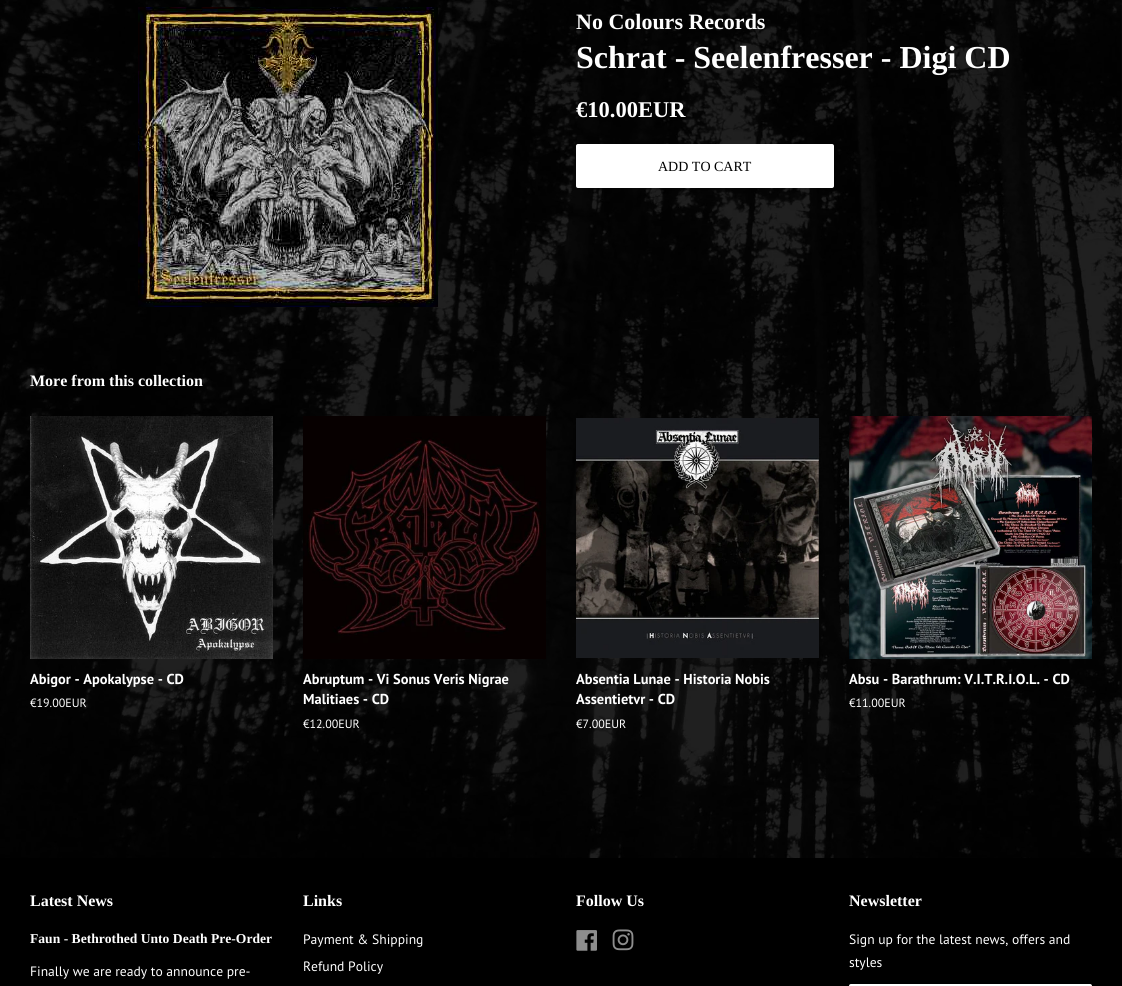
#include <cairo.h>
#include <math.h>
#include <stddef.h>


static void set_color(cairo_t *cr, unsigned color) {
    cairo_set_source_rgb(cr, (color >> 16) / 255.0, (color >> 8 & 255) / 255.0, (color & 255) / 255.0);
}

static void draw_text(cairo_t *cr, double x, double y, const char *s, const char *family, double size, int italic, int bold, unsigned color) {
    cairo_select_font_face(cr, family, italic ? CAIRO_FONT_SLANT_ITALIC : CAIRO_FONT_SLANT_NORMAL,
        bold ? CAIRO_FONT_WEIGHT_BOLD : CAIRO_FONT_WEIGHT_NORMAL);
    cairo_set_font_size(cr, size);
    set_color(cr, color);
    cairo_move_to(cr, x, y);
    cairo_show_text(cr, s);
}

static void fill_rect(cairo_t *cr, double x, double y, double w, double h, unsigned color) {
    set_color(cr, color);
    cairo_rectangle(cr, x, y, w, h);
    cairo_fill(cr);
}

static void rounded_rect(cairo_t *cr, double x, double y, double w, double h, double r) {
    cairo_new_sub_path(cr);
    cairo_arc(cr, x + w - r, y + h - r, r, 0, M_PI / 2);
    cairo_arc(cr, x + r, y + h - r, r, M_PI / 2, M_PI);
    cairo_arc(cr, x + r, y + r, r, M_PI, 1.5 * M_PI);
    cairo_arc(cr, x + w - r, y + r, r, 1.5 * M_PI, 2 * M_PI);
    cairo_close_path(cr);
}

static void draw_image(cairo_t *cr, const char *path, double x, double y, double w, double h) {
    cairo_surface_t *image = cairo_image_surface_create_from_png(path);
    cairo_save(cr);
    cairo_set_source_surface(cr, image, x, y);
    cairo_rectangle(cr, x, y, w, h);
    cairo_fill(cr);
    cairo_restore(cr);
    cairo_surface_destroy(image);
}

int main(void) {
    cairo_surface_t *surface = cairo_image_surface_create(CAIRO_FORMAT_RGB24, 1122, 986);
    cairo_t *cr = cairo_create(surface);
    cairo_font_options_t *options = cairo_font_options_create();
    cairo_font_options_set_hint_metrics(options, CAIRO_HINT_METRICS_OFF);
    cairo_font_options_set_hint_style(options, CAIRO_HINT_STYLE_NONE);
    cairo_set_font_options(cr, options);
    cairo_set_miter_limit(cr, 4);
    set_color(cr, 0xFFFFFF);
    cairo_paint(cr);
    draw_image(cr, "assets/img1.png", 0, 0, 1122, 858);
    cairo_set_source_rgba(cr, 0, 0, 0, 0.6);
    cairo_rectangle(cr, 0, 0, 1122, 858);
    cairo_fill(cr);
    draw_image(cr, "assets/img2.png", 138, 7, 300, 300);
    draw_text(cr, 576, 29, "No Colours Records", "Liberation Serif", 22, 0, 1, 0xFFFFFF);
    draw_text(cr, 576, 68, "Schrat - Seelenfresser - Digi CD", "Liberation Serif", 32, 0, 1, 0xFFFFFF);
    draw_text(cr, 576, 117, "€10.00EUR", "Liberation Serif", 22.5, 0, 1, 0xFFFFFF);
    rounded_rect(cr, 576, 144, 258, 44, 2);
    cairo_fill(cr);
    draw_text(cr, 658, 171, "ADD TO CART", "Liberation Serif", 14, 0, 0, 0x000000);
    draw_text(cr, 30, 386, "More from this collection", "Liberation Serif", 16, 0, 1, 0xFFFFFF);
    draw_image(cr, "assets/img3.png", 30, 416, 243, 243);
    draw_text(cr, 30, 684, "Abigor - Apokalypse - CD", "PT Sans", 14.4, 0, 1, 0xFFFFFF);
    draw_text(cr, 30, 707, "€19.00EUR", "PT Sans", 12, 0, 0, 0xFFFFFF);
    draw_image(cr, "assets/img4.png", 303, 416, 243, 243);
    draw_text(cr, 303, 684, "Abruptum - Vi Sonus Veris Nigrae", "PT Sans", 14.4, 0, 1, 0xFFFFFF);
    draw_text(cr, 303, 704, "Malitiaes - CD", "PT Sans", 14.4, 0, 1, 0xFFFFFF);
    draw_text(cr, 303, 728, "€12.00EUR", "PT Sans", 12, 0, 0, 0xFFFFFF);
    draw_image(cr, "assets/img5.png", 576, 418, 243, 240);
    draw_text(cr, 576, 684, "Absentia Lunae - Historia Nobis", "PT Sans", 14.4, 0, 1, 0xFFFFFF);
    draw_text(cr, 576, 704, "Assentietvr - CD", "PT Sans", 14.4, 0, 1, 0xFFFFFF);
    draw_text(cr, 576, 728, "€7.00EUR", "PT Sans", 12, 0, 0, 0xFFFFFF);
    draw_image(cr, "assets/img6.png", 849, 416, 243, 243);
    draw_text(cr, 849, 684, "Absu - Barathrum: V.I.T.R.I.O.L. - CD", "PT Sans", 14.4, 0, 1, 0xFFFFFF);
    draw_text(cr, 849, 707, "€11.00EUR", "PT Sans", 12, 0, 0, 0xFFFFFF);
    fill_rect(cr, 0, 858, 1122, 128, 0x000000);
    draw_text(cr, 30, 906, "Latest News", "Liberation Serif", 16, 0, 1, 0xFFFFFF);
    draw_text(cr, 30, 943, "Faun - Bethrothed Unto Death Pre-Order", "Liberation Serif", 13.6, 0, 1, 0xFFFFFF);
    draw_text(cr, 30, 976, "Finally we are ready to announce pre-", "PT Sans", 13.6, 0, 0, 0xFFFFFF);
    draw_text(cr, 303, 906, "Links", "Liberation Serif", 16, 0, 1, 0xFFFFFF);
    draw_text(cr, 303, 944, "Payment & Shipping", "PT Sans", 13.6, 0, 0, 0xFFFFFF);
    draw_text(cr, 303, 971, "Refund Policy", "PT Sans", 13.6, 0, 0, 0xFFFFFF);
    draw_text(cr, 576, 906, "Follow Us", "Liberation Serif", 16, 0, 1, 0xFFFFFF);
    draw_image(cr, "assets/img7.png", 576, 930, 21, 21);
    draw_image(cr, "assets/img8.png", 612, 929, 22, 22);
    draw_text(cr, 849, 906, "Newsletter", "Liberation Serif", 16, 0, 1, 0xFFFFFF);
    draw_text(cr, 849, 944, "Sign up for the latest news, offers and", "PT Sans", 13.6, 0, 0, 0xFFFFFF);
    draw_text(cr, 849, 967, "styles", "PT Sans", 13.6, 0, 0, 0xFFFFFF);
    rounded_rect(cr, 849, 984, 243, 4, 2);
    cairo_fill(cr);
    rounded_rect(cr, 849.5, 984.5, 242, 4, 1.5);
    cairo_set_source_rgba(cr, 1, 1, 1, 0.15);
    cairo_set_line_width(cr, 1);
    cairo_stroke(cr);
    cairo_surface_write_to_png(surface, "output.png");
    cairo_font_options_destroy(options);
    cairo_destroy(cr);
    cairo_surface_destroy(surface);
    return 0;
}
